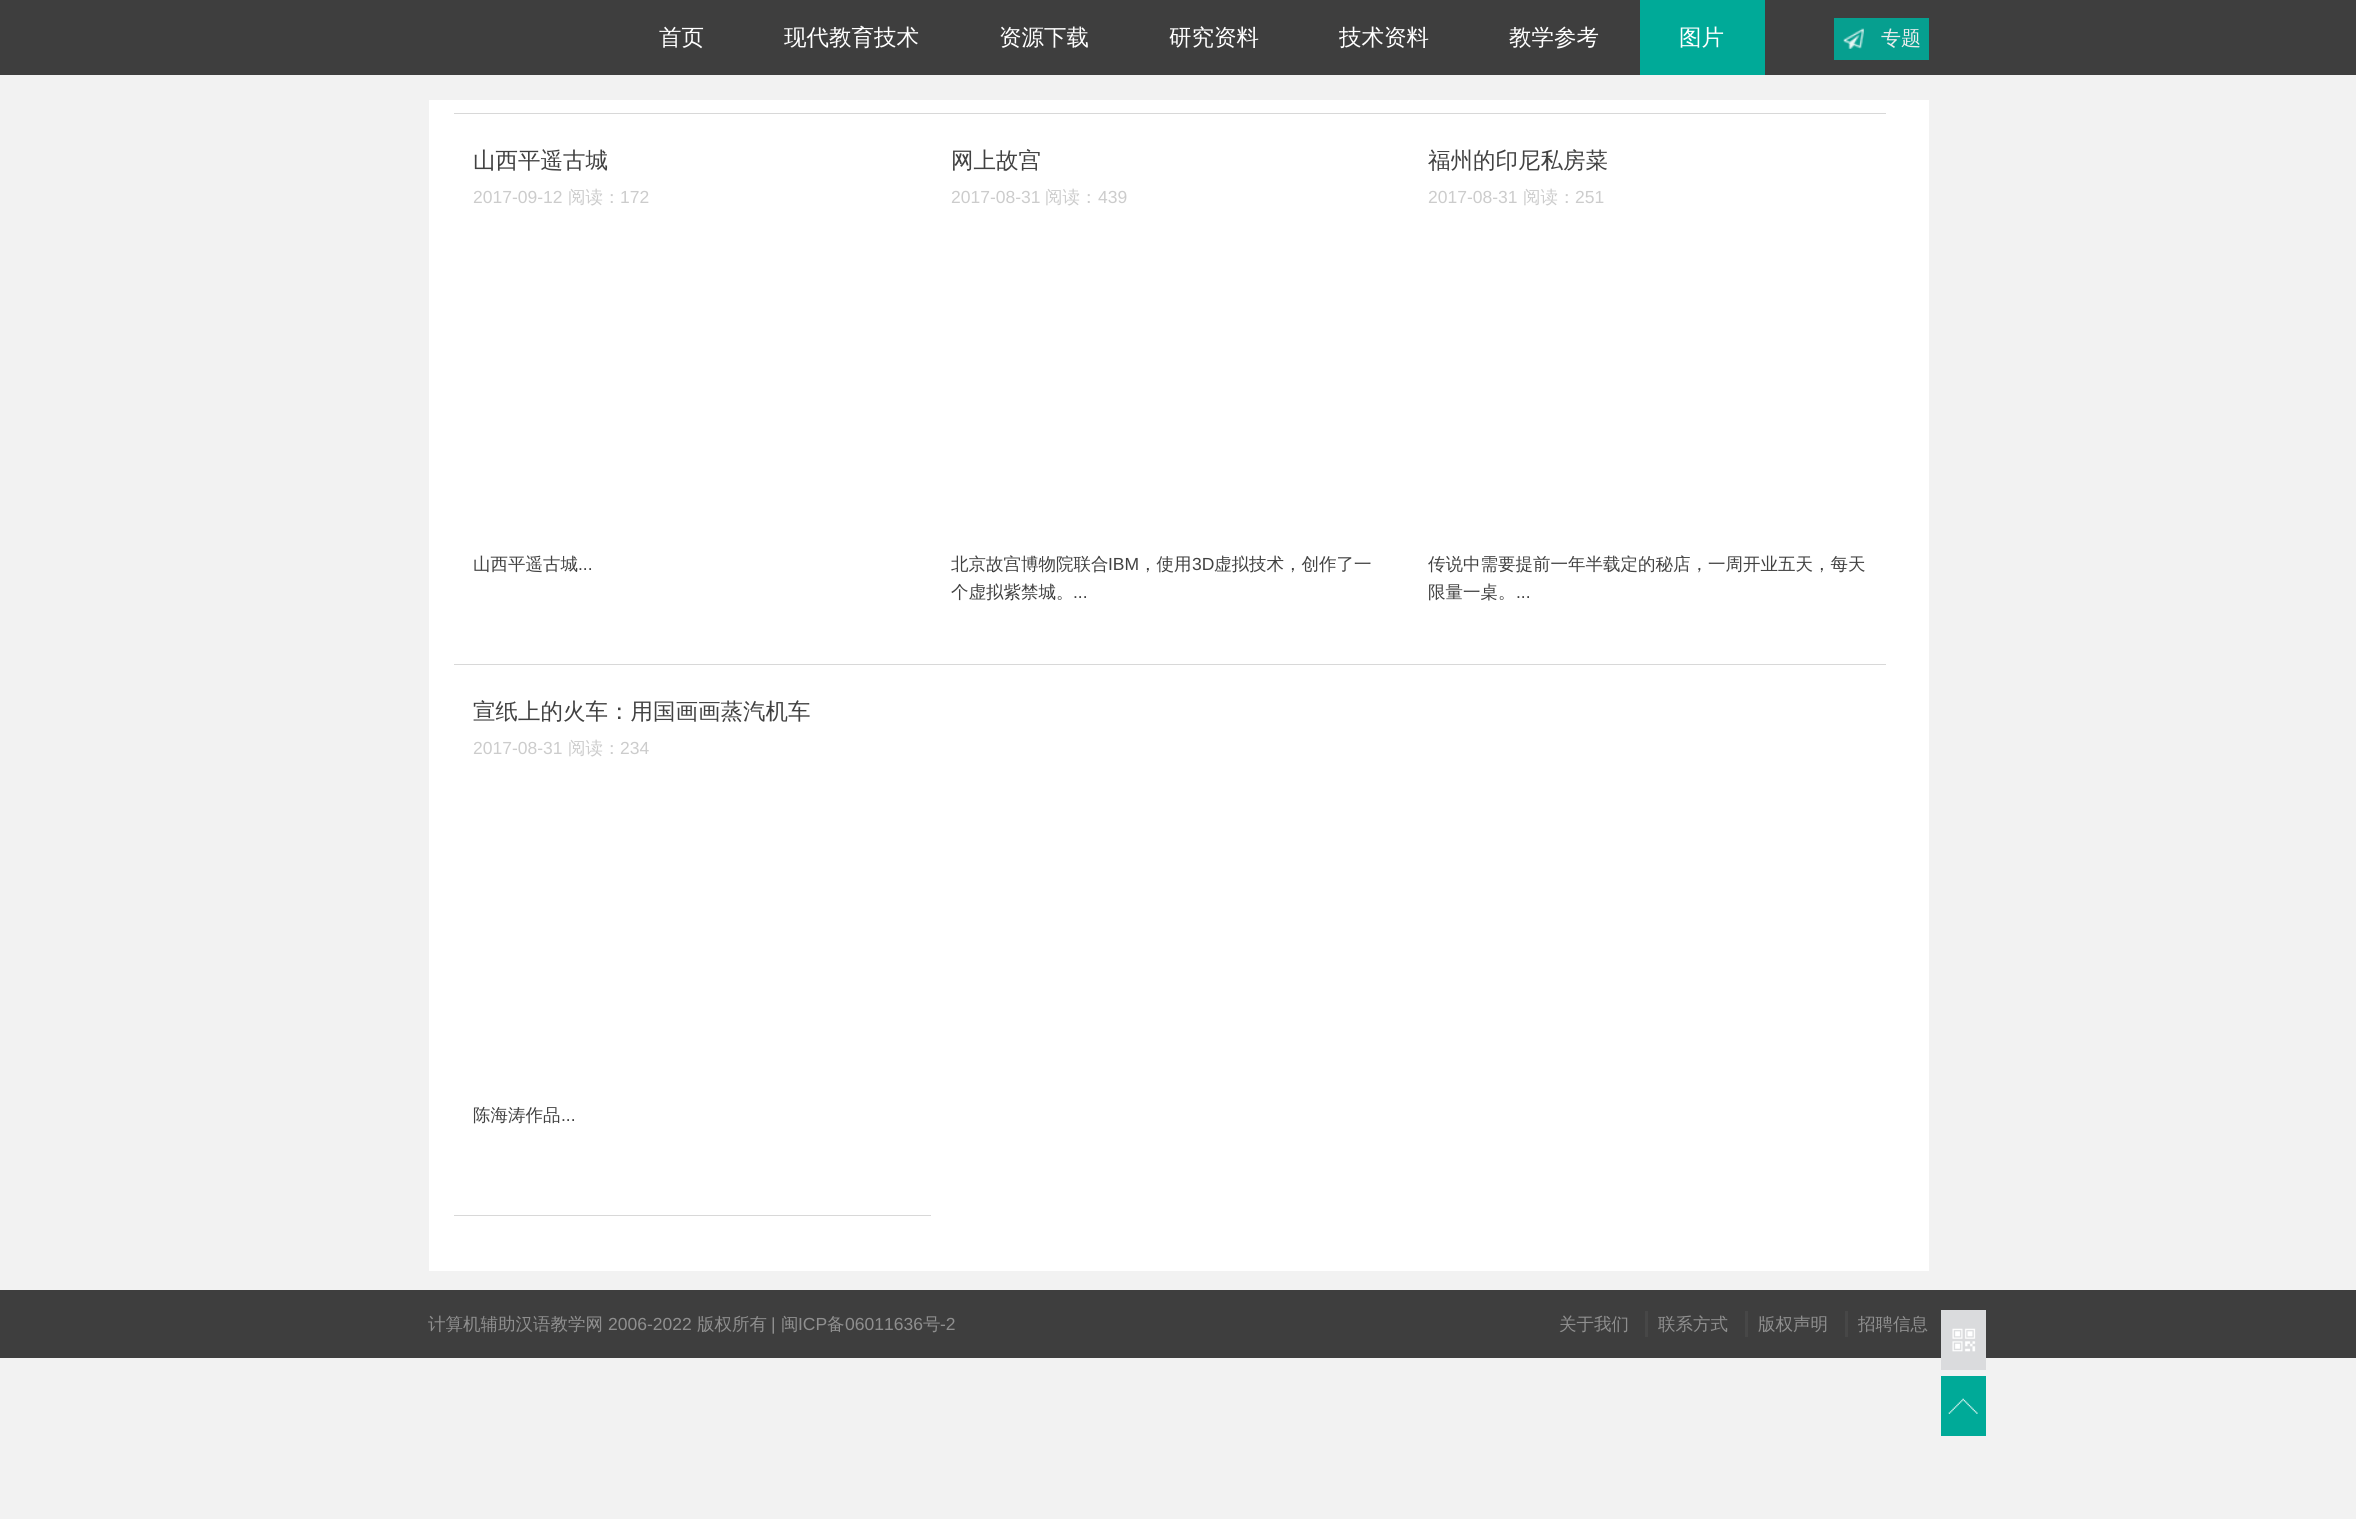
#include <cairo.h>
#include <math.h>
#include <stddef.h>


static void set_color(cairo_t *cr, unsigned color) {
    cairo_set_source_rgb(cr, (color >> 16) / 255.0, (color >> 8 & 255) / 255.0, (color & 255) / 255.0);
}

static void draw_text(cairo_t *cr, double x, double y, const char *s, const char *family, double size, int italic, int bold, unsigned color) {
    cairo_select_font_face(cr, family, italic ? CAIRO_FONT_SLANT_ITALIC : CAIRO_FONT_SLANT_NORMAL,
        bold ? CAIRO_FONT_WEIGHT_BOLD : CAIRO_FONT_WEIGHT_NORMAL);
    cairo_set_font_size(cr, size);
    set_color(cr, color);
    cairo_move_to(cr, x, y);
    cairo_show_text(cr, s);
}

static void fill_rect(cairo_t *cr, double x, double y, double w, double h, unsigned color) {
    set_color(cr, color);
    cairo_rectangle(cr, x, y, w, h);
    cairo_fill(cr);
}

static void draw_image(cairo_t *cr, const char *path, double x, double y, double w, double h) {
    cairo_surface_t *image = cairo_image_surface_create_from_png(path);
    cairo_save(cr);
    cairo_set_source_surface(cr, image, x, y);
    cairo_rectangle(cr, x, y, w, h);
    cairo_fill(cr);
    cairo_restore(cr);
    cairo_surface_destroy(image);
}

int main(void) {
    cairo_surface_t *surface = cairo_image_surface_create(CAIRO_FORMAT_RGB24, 2356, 1519);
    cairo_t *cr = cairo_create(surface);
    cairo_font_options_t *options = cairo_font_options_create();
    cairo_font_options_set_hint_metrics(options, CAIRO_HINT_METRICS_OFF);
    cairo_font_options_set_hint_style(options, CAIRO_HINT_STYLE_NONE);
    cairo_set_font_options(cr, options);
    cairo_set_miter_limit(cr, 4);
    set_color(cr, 0xF2F2F2);
    cairo_paint(cr);
    fill_rect(cr, 0, 0, 2356, 75, 0x3E3E3E);
    draw_text(cr, 659, 45, "首页", "WenQuanYi Zen Hei Medium", 22.5, 0, 0, 0xFFFFFF);
    draw_text(cr, 784, 45, "现代教育技术", "WenQuanYi Zen Hei Medium", 22.5, 0, 0, 0xFFFFFF);
    draw_text(cr, 999, 45, "资源下载", "WenQuanYi Zen Hei Medium", 22.5, 0, 0, 0xFFFFFF);
    draw_text(cr, 1169, 45, "研究资料", "WenQuanYi Zen Hei Medium", 22.5, 0, 0, 0xFFFFFF);
    draw_text(cr, 1339, 45, "技术资料", "WenQuanYi Zen Hei Medium", 22.5, 0, 0, 0xFFFFFF);
    draw_text(cr, 1509, 45, "教学参考", "WenQuanYi Zen Hei Medium", 22.5, 0, 0, 0xFFFFFF);
    fill_rect(cr, 1640, 0, 125, 75, 0x00AA98);
    draw_text(cr, 1679, 45, "图片", "WenQuanYi Zen Hei Medium", 22.5, 0, 0, 0xFFFFFF);
    fill_rect(cr, 1834, 18, 95, 42, 0x069F8F);
    draw_image(cr, "assets/img1.png", 1843, 28, 21, 21);
    draw_text(cr, 1881, 45, "专题", "WenQuanYi Zen Hei Medium", 20, 0, 0, 0xECECEC);
    fill_rect(cr, 429, 100, 1500, 1171, 0xFFFFFF);
    fill_rect(cr, 454, 113, 1432, 1, 0xD8D8D8);
    fill_rect(cr, 454, 664, 1432, 1, 0xD8D8D8);
    draw_text(cr, 473, 168, "山西平遥古城", "WenQuanYi Zen Hei Medium", 22.5, 0, 0, 0x414141);
    draw_text(cr, 473, 203, "2017-09-12", "Liberation Sans", 17.5, 0, 0, 0xCCCCCC);
    draw_text(cr, 568, 203, "阅读：", "WenQuanYi Zen Hei Medium", 17.5, 0, 0, 0xCCCCCC);
    draw_text(cr, 620, 203, "172", "Liberation Sans", 17.5, 0, 0, 0xCCCCCC);
    draw_text(cr, 473, 570, "山西平遥古城", "WenQuanYi Zen Hei Medium", 17.5, 0, 0, 0x414141);
    draw_text(cr, 578, 570, "...", "Liberation Sans", 17.5, 0, 0, 0x414141);
    draw_text(cr, 951, 168, "网上故宫", "WenQuanYi Zen Hei Medium", 22.5, 0, 0, 0x414141);
    draw_text(cr, 951, 203, "2017-08-31", "Liberation Sans", 17.5, 0, 0, 0xCCCCCC);
    draw_text(cr, 1045, 203, "阅读：", "WenQuanYi Zen Hei Medium", 17.5, 0, 0, 0xCCCCCC);
    draw_text(cr, 1098, 203, "439", "Liberation Sans", 17.5, 0, 0, 0xCCCCCC);
    draw_text(cr, 951, 570, "北京故宫博物院联合", "WenQuanYi Zen Hei Medium", 17.5, 0, 0, 0x414141);
    draw_text(cr, 1108, 570, "IBM", "Liberation Sans", 17.5, 0, 0, 0x414141);
    draw_text(cr, 1139, 570, "，使用", "WenQuanYi Zen Hei Medium", 17.5, 0, 0, 0x414141);
    draw_text(cr, 1192, 570, "3D", "Liberation Sans", 17.5, 0, 0, 0x414141);
    draw_text(cr, 1214, 570, "虚拟技术，创作了一", "WenQuanYi Zen Hei Medium", 17.5, 0, 0, 0x414141);
    draw_text(cr, 951, 598, "个虚拟紫禁城。", "WenQuanYi Zen Hei Medium", 17.5, 0, 0, 0x414141);
    draw_text(cr, 1073, 598, "...", "Liberation Sans", 17.5, 0, 0, 0x414141);
    draw_text(cr, 1428, 168, "福州的印尼私房菜", "WenQuanYi Zen Hei Medium", 22.5, 0, 0, 0x414141);
    draw_text(cr, 1428, 203, "2017-08-31", "Liberation Sans", 17.5, 0, 0, 0xCCCCCC);
    draw_text(cr, 1523, 203, "阅读：", "WenQuanYi Zen Hei Medium", 17.5, 0, 0, 0xCCCCCC);
    draw_text(cr, 1575, 203, "251", "Liberation Sans", 17.5, 0, 0, 0xCCCCCC);
    draw_text(cr, 1428, 570, "传说中需要提前一年半载定的秘店，一周开业五天，每天", "WenQuanYi Zen Hei Medium", 17.5, 0, 0, 0x414141);
    draw_text(cr, 1428, 598, "限量一桌。", "WenQuanYi Zen Hei Medium", 17.5, 0, 0, 0x414141);
    draw_text(cr, 1516, 598, "...", "Liberation Sans", 17.5, 0, 0, 0x414141);
    fill_rect(cr, 454, 1215, 477, 1, 0xD8D8D8);
    draw_text(cr, 473, 719, "宣纸上的火车：用国画画蒸汽机车", "WenQuanYi Zen Hei Medium", 22.5, 0, 0, 0x414141);
    draw_text(cr, 473, 754, "2017-08-31", "Liberation Sans", 17.5, 0, 0, 0xCCCCCC);
    draw_text(cr, 568, 754, "阅读：", "WenQuanYi Zen Hei Medium", 17.5, 0, 0, 0xCCCCCC);
    draw_text(cr, 620, 754, "234", "Liberation Sans", 17.5, 0, 0, 0xCCCCCC);
    draw_text(cr, 473, 1121, "陈海涛作品", "WenQuanYi Zen Hei Medium", 17.5, 0, 0, 0x414141);
    draw_text(cr, 561, 1121, "...", "Liberation Sans", 17.5, 0, 0, 0x414141);
    fill_rect(cr, 0, 1290, 2356, 68, 0x3E3E3E);
    fill_rect(cr, 1941, 1310, 45, 60, 0xDADBDD);
    draw_image(cr, "assets/img2.png", 1952, 1328, 24, 24);
    fill_rect(cr, 1941, 1376, 45, 60, 0x00AA98);
    draw_image(cr, "assets/img3.png", 1948, 1398, 30, 16);
    draw_text(cr, 428, 1330, "计算机辅助汉语教学网", "WenQuanYi Zen Hei Medium", 17.5, 0, 0, 0x8F8F8F);
    draw_text(cr, 608, 1330, "2006-2022", "Liberation Sans", 17.5, 0, 0, 0x8F8F8F);
    draw_text(cr, 697, 1330, "版权所有", "WenQuanYi Zen Hei Medium", 17.5, 0, 0, 0x8F8F8F);
    draw_text(cr, 771, 1330, "|", "Liberation Sans", 17.5, 0, 0, 0x8F8F8F);
    draw_text(cr, 781, 1330, "闽", "WenQuanYi Zen Hei Medium", 17.5, 0, 0, 0x8F8F8F);
    draw_text(cr, 798, 1330, "ICP", "Liberation Sans", 17.5, 0, 0, 0x8F8F8F);
    draw_text(cr, 827, 1330, "备", "WenQuanYi Zen Hei Medium", 17.5, 0, 0, 0x8F8F8F);
    draw_text(cr, 845, 1330, "06011636", "Liberation Sans", 17.5, 0, 0, 0x8F8F8F);
    draw_text(cr, 923, 1330, "号", "WenQuanYi Zen Hei Medium", 17.5, 0, 0, 0x8F8F8F);
    draw_text(cr, 940, 1330, "-2", "Liberation Sans", 17.5, 0, 0, 0x8F8F8F);
    draw_text(cr, 1559, 1330, "关于我们", "WenQuanYi Zen Hei Medium", 17.5, 0, 0, 0x8F8F8F);
    fill_rect(cr, 1645, 1311, 3, 26, 0x474747);
    draw_text(cr, 1658, 1330, "联系方式", "WenQuanYi Zen Hei Medium", 17.5, 0, 0, 0x8F8F8F);
    fill_rect(cr, 1745, 1311, 3, 26, 0x474747);
    draw_text(cr, 1758, 1330, "版权声明", "WenQuanYi Zen Hei Medium", 17.5, 0, 0, 0x8F8F8F);
    fill_rect(cr, 1845, 1311, 3, 26, 0x474747);
    draw_text(cr, 1858, 1330, "招聘信息", "WenQuanYi Zen Hei Medium", 17.5, 0, 0, 0x8F8F8F);
    cairo_surface_write_to_png(surface, "output.png");
    cairo_font_options_destroy(options);
    cairo_destroy(cr);
    cairo_surface_destroy(surface);
    return 0;
}
